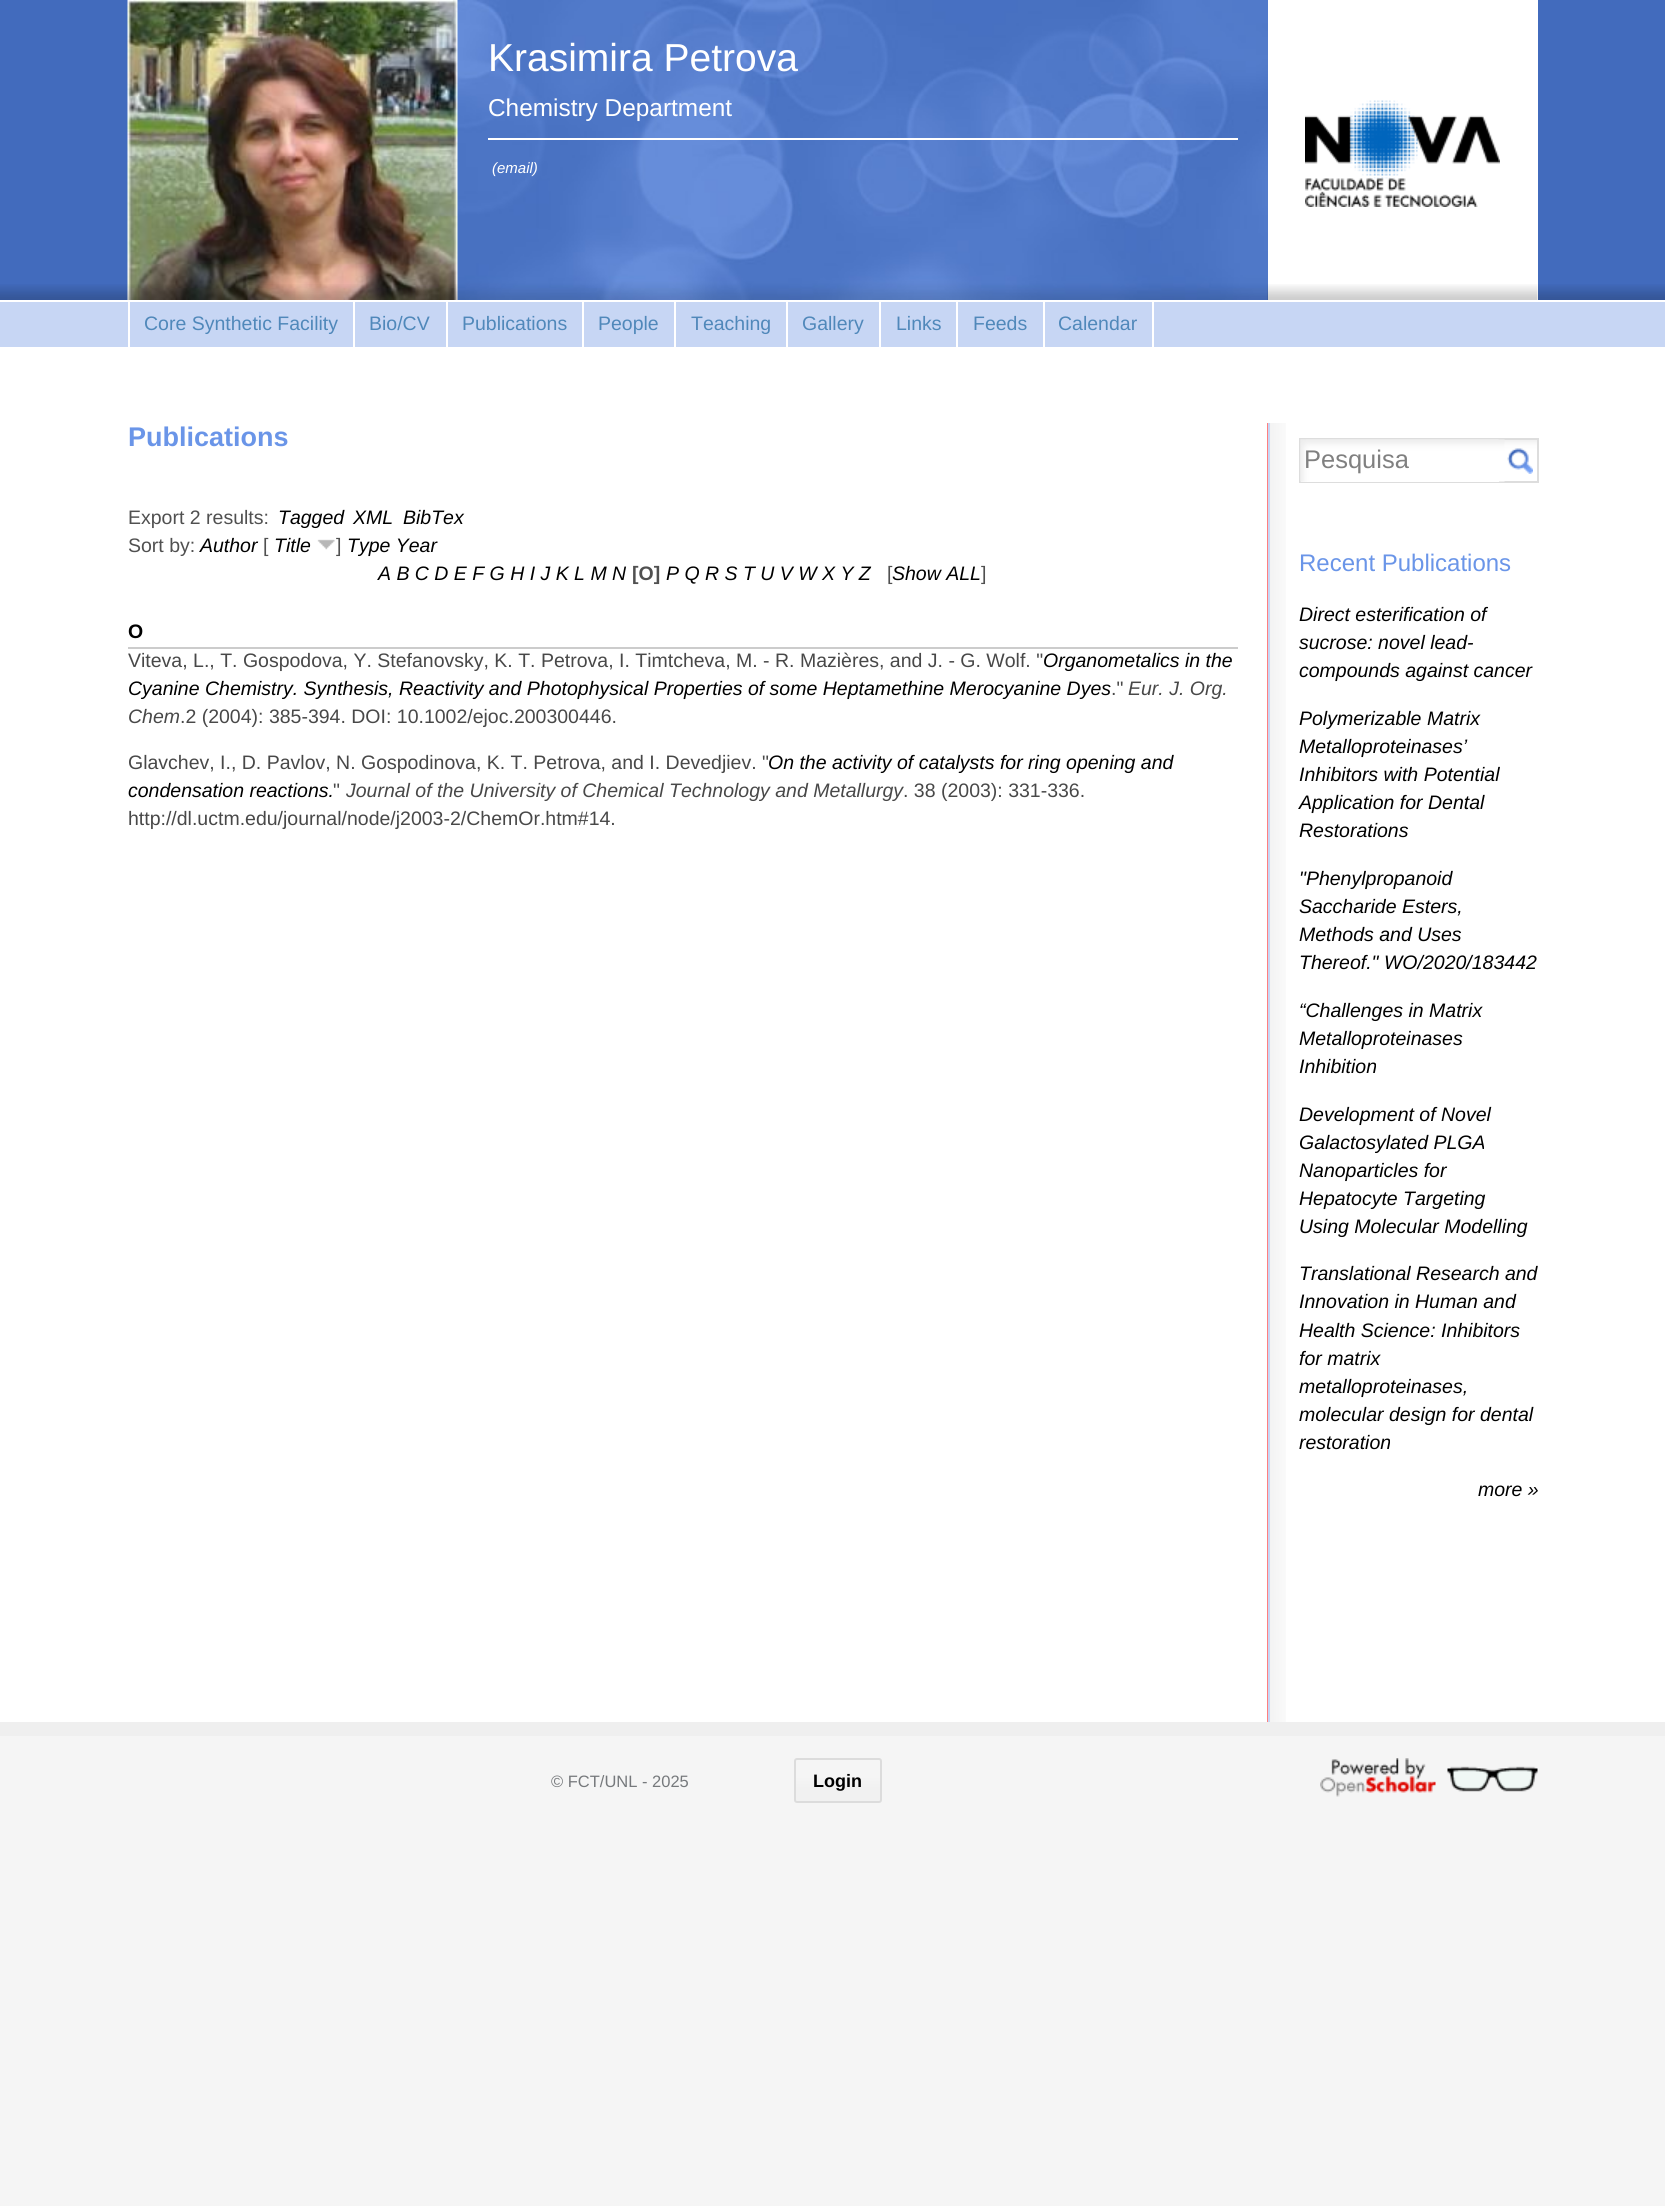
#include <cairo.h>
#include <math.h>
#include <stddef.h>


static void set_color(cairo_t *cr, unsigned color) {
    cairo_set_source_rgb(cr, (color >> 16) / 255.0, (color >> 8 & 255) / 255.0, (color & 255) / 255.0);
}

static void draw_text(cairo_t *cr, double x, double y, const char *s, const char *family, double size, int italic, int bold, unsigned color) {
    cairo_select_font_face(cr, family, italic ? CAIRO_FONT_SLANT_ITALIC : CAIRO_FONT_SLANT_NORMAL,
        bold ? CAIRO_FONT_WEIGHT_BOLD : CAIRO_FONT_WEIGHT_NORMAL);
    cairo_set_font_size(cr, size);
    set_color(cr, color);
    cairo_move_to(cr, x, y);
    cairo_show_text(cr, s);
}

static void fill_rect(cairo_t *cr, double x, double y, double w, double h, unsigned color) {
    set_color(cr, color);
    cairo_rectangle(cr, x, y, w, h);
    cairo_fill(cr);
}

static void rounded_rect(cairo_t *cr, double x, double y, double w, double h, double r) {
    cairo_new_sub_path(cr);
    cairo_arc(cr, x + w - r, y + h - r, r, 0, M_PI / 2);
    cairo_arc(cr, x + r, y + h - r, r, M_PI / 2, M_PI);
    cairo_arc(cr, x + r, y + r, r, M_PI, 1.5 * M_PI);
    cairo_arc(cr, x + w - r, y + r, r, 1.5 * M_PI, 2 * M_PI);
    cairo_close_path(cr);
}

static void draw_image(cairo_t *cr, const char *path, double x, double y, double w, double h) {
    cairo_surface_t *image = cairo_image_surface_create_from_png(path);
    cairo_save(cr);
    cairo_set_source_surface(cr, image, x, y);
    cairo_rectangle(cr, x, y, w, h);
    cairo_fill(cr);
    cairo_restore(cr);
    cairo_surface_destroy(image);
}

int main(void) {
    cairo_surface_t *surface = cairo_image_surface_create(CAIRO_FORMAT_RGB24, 1665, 2206);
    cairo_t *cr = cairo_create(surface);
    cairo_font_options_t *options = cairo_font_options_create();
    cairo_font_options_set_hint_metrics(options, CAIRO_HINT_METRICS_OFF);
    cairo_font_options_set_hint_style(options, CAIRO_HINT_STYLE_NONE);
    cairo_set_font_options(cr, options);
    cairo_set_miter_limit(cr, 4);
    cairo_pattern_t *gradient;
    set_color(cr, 0xF5F5F5);
    cairo_paint(cr);
    fill_rect(cr, 0, 347, 1665, 1375, 0xFFFFFF);
    fill_rect(cr, 0, 0, 1665, 300, 0x426BBD);
    draw_image(cr, "assets/img1.png", 0, 284, 1665, 16);
    draw_image(cr, "assets/img2.png", 127, 0, 1141, 300);
    draw_image(cr, "assets/img3.png", 127, 0, 331, 300);
    draw_image(cr, "assets/img4.png", 127, 284, 331, 16);
    draw_text(cr, 488, 71, "Krasimira Petrova", "Liberation Sans", 39, 0, 0, 0xFFFFFF);
    draw_text(cr, 488, 116, "Chemistry Department", "Liberation Sans", 24.4, 0, 0, 0xFFFFFF);
    fill_rect(cr, 488, 138, 750, 2, 0xFFFFFF);
    draw_text(cr, 492, 173, "(email)", "Liberation Sans", 15, 1, 0, 0xFFFFFF);
    fill_rect(cr, 1268, 0, 270, 300, 0xFFFFFF);
    draw_image(cr, "assets/img5.png", 1267, 284, 271, 16);
    draw_image(cr, "assets/img6.png", 1305, 100, 195, 107);
    fill_rect(cr, 0, 302, 1665, 45, 0xC7D6F4);
    fill_rect(cr, 0, 300, 1665, 2, 0xFFFFFF);
    fill_rect(cr, 353, 302, 2, 45, 0xFFFFFF);
    fill_rect(cr, 128, 302, 2, 45, 0xFFFFFF);
    draw_text(cr, 144, 330, "Core Synthetic Facility", "Liberation Sans", 19.5, 0, 0, 0x5088BA);
    fill_rect(cr, 446, 302, 2, 45, 0xFFFFFF);
    draw_text(cr, 369, 330, "Bio/CV", "Liberation Sans", 19.5, 0, 0, 0x5088BA);
    fill_rect(cr, 582, 302, 2, 45, 0xFFFFFF);
    draw_text(cr, 462, 330, "Publications", "Liberation Sans", 19.5, 0, 0, 0x5088BA);
    fill_rect(cr, 674, 302, 2, 45, 0xFFFFFF);
    draw_text(cr, 598, 330, "People", "Liberation Sans", 19.5, 0, 0, 0x5088BA);
    fill_rect(cr, 786, 302, 2, 45, 0xFFFFFF);
    draw_text(cr, 691, 330, "Teaching", "Liberation Sans", 19.5, 0, 0, 0x5088BA);
    fill_rect(cr, 879, 302, 2, 45, 0xFFFFFF);
    draw_text(cr, 802, 330, "Gallery", "Liberation Sans", 19.5, 0, 0, 0x5088BA);
    fill_rect(cr, 956, 302, 2, 45, 0xFFFFFF);
    draw_text(cr, 896, 330, "Links", "Liberation Sans", 19.5, 0, 0, 0x5088BA);
    fill_rect(cr, 1043, 302, 2, 45, 0xFFFFFF);
    draw_text(cr, 973, 330, "Feeds", "Liberation Sans", 19.5, 0, 0, 0x5088BA);
    fill_rect(cr, 1152, 302, 2, 45, 0xFFFFFF);
    draw_text(cr, 1058, 330, "Calendar", "Liberation Sans", 19.5, 0, 0, 0x5088BA);
    draw_text(cr, 128, 446, "Publications", "Liberation Sans", 27, 0, 1, 0x6A95E8);
    draw_text(cr, 128, 524, "Export 2 results:", "Liberation Sans", 19.5, 0, 0, 0x505050);
    draw_text(cr, 278, 524, "Tagged", "Liberation Sans", 19.5, 1, 0, 0x000000);
    draw_text(cr, 353, 524, "XML", "Liberation Sans", 19.5, 1, 0, 0x000000);
    draw_text(cr, 403, 524, "BibTex", "Liberation Sans", 19.5, 1, 0, 0x000000);
    draw_text(cr, 128, 552, "Sort by:", "Liberation Sans", 19.5, 0, 0, 0x505050);
    draw_text(cr, 200, 552, "Author", "Liberation Sans", 19.5, 1, 0, 0x000000);
    draw_text(cr, 263, 552, "[", "Liberation Sans", 19.5, 0, 0, 0x505050);
    draw_text(cr, 274, 552, "Title", "Liberation Sans", 19.5, 1, 0, 0x000000);
    draw_image(cr, "assets/img7.png", 317, 539, 18, 11);
    draw_text(cr, 336, 552, "]", "Liberation Sans", 19.5, 0, 0, 0x505050);
    draw_text(cr, 347, 552, "Type Year", "Liberation Sans", 19.5, 1, 0, 0x000000);
    draw_text(cr, 378, 580, "A B C D E F G H I J K L M N", "Liberation Sans", 19.5, 1, 0, 0x000000);
    draw_text(cr, 632, 580, "[O]", "Liberation Sans", 19.5, 0, 1, 0x505050);
    draw_text(cr, 666, 580, "P Q R S T U V W X Y Z", "Liberation Sans", 19.5, 1, 0, 0x000000);
    draw_text(cr, 887, 580, "[", "Liberation Sans", 19.5, 0, 0, 0x505050);
    draw_text(cr, 892, 580, "Show ALL", "Liberation Sans", 19.5, 1, 0, 0x000000);
    draw_text(cr, 981, 580, "]", "Liberation Sans", 19.5, 0, 0, 0x505050);
    fill_rect(cr, 128, 647, 1110, 2, 0xCCCCCC);
    draw_text(cr, 128, 638, "O", "Liberation Sans", 19.5, 0, 1, 0x000000);
    draw_text(cr, 128, 667, "Viteva, L., T. Gospodova, Y. Stefanovsky, K. T. Petrova, I. Timtcheva, M. - R. Mazières, and J. - G. Wolf. \"", "Liberation Sans", 19.5, 0, 0, 0x484848);
    draw_text(cr, 1043, 667, "Organometalics in the", "Liberation Sans", 19.5, 1, 0, 0x000000);
    draw_text(cr, 128, 695, "Cyanine Chemistry. Synthesis, Reactivity and Photophysical Properties of some Heptamethine Merocyanine Dyes", "Liberation Sans", 19.5, 1, 0, 0x000000);
    draw_text(cr, 1111, 695, ".\"", "Liberation Sans", 19.5, 0, 0, 0x484848);
    draw_text(cr, 1128, 695, "Eur. J. Org.", "Liberation Sans", 19.5, 1, 0, 0x484848);
    draw_text(cr, 128, 723, "Chem", "Liberation Sans", 19.5, 1, 0, 0x484848);
    draw_text(cr, 180, 723, ".2 (2004): 385-394. DOI: 10.1002/ejoc.200300446.", "Liberation Sans", 19.5, 0, 0, 0x484848);
    draw_text(cr, 128, 769, "Glavchev, I., D. Pavlov, N. Gospodinova, K. T. Petrova, and I. Devedjiev. \"", "Liberation Sans", 19.5, 0, 0, 0x484848);
    draw_text(cr, 768, 769, "On the activity of catalysts for ring opening and", "Liberation Sans", 19.5, 1, 0, 0x000000);
    draw_text(cr, 128, 797, "condensation reactions.", "Liberation Sans", 19.5, 1, 0, 0x000000);
    draw_text(cr, 333, 797, "\"", "Liberation Sans", 19.5, 0, 0, 0x484848);
    draw_text(cr, 346, 797, "Journal of the University of Chemical Technology and Metallurgy", "Liberation Sans", 19.5, 1, 0, 0x484848);
    draw_text(cr, 903, 797, ". 38 (2003): 331-336.", "Liberation Sans", 19.5, 0, 0, 0x484848);
    draw_text(cr, 128, 825, "http://dl.uctm.edu/journal/node/j2003-2/ChemOr.htm#14.", "Liberation Sans", 19.5, 0, 0, 0x484848);
    draw_image(cr, "assets/img8.png", 1267, 423, 19, 1299);
    fill_rect(cr, 1268, 423, 2, 1299, 0xC7D6F4);
    draw_image(cr, "assets/img9.png", 1504, 440, 33, 41);
    cairo_rectangle(cr, 1300, 439, 238, 43);
    set_color(cr, 0xDDDDDD);
    cairo_stroke(cr);
    fill_rect(cr, 1301, 481, 198, 1, 0xFFFFFF);
    draw_image(cr, "assets/img10.png", 1300, 439, 199, 43);
    draw_image(cr, "assets/img11.png", 1300, 439, 205, 43);
    draw_text(cr, 1304, 468, "Pesquisa", "Liberation Sans", 25.5, 0, 0, 0x808080);
    draw_image(cr, "assets/img12.png", 1507, 448, 26, 26);
    draw_text(cr, 1299, 571, "Recent Publications", "Liberation Sans", 24, 0, 0, 0x6A95E8);
    draw_text(cr, 1299, 621, "Direct esterification of", "Liberation Sans", 19.5, 1, 0, 0x000000);
    draw_text(cr, 1299, 649, "sucrose: novel lead-", "Liberation Sans", 19.5, 1, 0, 0x000000);
    draw_text(cr, 1299, 677, "compounds against cancer", "Liberation Sans", 19.5, 1, 0, 0x000000);
    draw_text(cr, 1299, 725, "Polymerizable Matrix", "Liberation Sans", 19.5, 1, 0, 0x000000);
    draw_text(cr, 1299, 753, "Metalloproteinases’", "Liberation Sans", 19.5, 1, 0, 0x000000);
    draw_text(cr, 1299, 781, "Inhibitors with Potential", "Liberation Sans", 19.5, 1, 0, 0x000000);
    draw_text(cr, 1299, 809, "Application for Dental", "Liberation Sans", 19.5, 1, 0, 0x000000);
    draw_text(cr, 1299, 837, "Restorations", "Liberation Sans", 19.5, 1, 0, 0x000000);
    draw_text(cr, 1299, 885, "\"Phenylpropanoid", "Liberation Sans", 19.5, 1, 0, 0x000000);
    draw_text(cr, 1299, 913, "Saccharide Esters,", "Liberation Sans", 19.5, 1, 0, 0x000000);
    draw_text(cr, 1299, 941, "Methods and Uses", "Liberation Sans", 19.5, 1, 0, 0x000000);
    draw_text(cr, 1299, 969, "Thereof.\" WO/2020/183442", "Liberation Sans", 19.5, 1, 0, 0x000000);
    draw_text(cr, 1299, 1017, "“Challenges in Matrix", "Liberation Sans", 19.5, 1, 0, 0x000000);
    draw_text(cr, 1299, 1045, "Metalloproteinases", "Liberation Sans", 19.5, 1, 0, 0x000000);
    draw_text(cr, 1299, 1073, "Inhibition", "Liberation Sans", 19.5, 1, 0, 0x000000);
    draw_text(cr, 1299, 1121, "Development of Novel", "Liberation Sans", 19.5, 1, 0, 0x000000);
    draw_text(cr, 1299, 1149, "Galactosylated PLGA", "Liberation Sans", 19.5, 1, 0, 0x000000);
    draw_text(cr, 1299, 1177, "Nanoparticles for", "Liberation Sans", 19.5, 1, 0, 0x000000);
    draw_text(cr, 1299, 1205, "Hepatocyte Targeting", "Liberation Sans", 19.5, 1, 0, 0x000000);
    draw_text(cr, 1299, 1233, "Using Molecular Modelling", "Liberation Sans", 19.5, 1, 0, 0x000000);
    draw_text(cr, 1299, 1280, "Translational Research and", "Liberation Sans", 19.5, 1, 0, 0x000000);
    draw_text(cr, 1299, 1308, "Innovation in Human and", "Liberation Sans", 19.5, 1, 0, 0x000000);
    draw_text(cr, 1299, 1337, "Health Science: Inhibitors", "Liberation Sans", 19.5, 1, 0, 0x000000);
    draw_text(cr, 1299, 1365, "for matrix", "Liberation Sans", 19.5, 1, 0, 0x000000);
    draw_text(cr, 1299, 1393, "metalloproteinases,", "Liberation Sans", 19.5, 1, 0, 0x000000);
    draw_text(cr, 1299, 1421, "molecular design for dental", "Liberation Sans", 19.5, 1, 0, 0x000000);
    draw_text(cr, 1299, 1449, "restoration", "Liberation Sans", 19.5, 1, 0, 0x000000);
    draw_text(cr, 1478, 1496, "more »", "Liberation Sans", 19.5, 1, 0, 0x000000);
    fill_rect(cr, 0, 1722, 1665, 14, 0xEFEFEF);
    draw_text(cr, 551, 1787, "© FCT/UNL - 2025", "Liberation Sans", 16.5, 0, 0, 0x76797C);
    cairo_save(cr);
    rounded_rect(cr, 794, 1758, 88, 45, 3);
    cairo_clip(cr);
    gradient = cairo_pattern_create_linear(795, 1776, 795, 1789);
    cairo_pattern_add_color_stop_rgba(gradient, 0, 0.961, 0.961, 0.961, 1);
    cairo_pattern_add_color_stop_rgba(gradient, 1, 0.945, 0.945, 0.945, 1);
    cairo_set_source(cr, gradient);
    cairo_pattern_destroy(gradient);
    cairo_rectangle(cr, 794, 1760, 88, 42);
    cairo_fill(cr);
    cairo_restore(cr);
    rounded_rect(cr, 795, 1759, 86, 43, 2);
    set_color(cr, 0xDCDCDC);
    cairo_stroke(cr);
    draw_text(cr, 813, 1787, "Login", "Liberation Sans", 18, 0, 1, 0x000000);
    draw_image(cr, "assets/img13.png", 1320, 1758, 218, 39);
    cairo_surface_write_to_png(surface, "output.png");
    cairo_font_options_destroy(options);
    cairo_destroy(cr);
    cairo_surface_destroy(surface);
    return 0;
}
